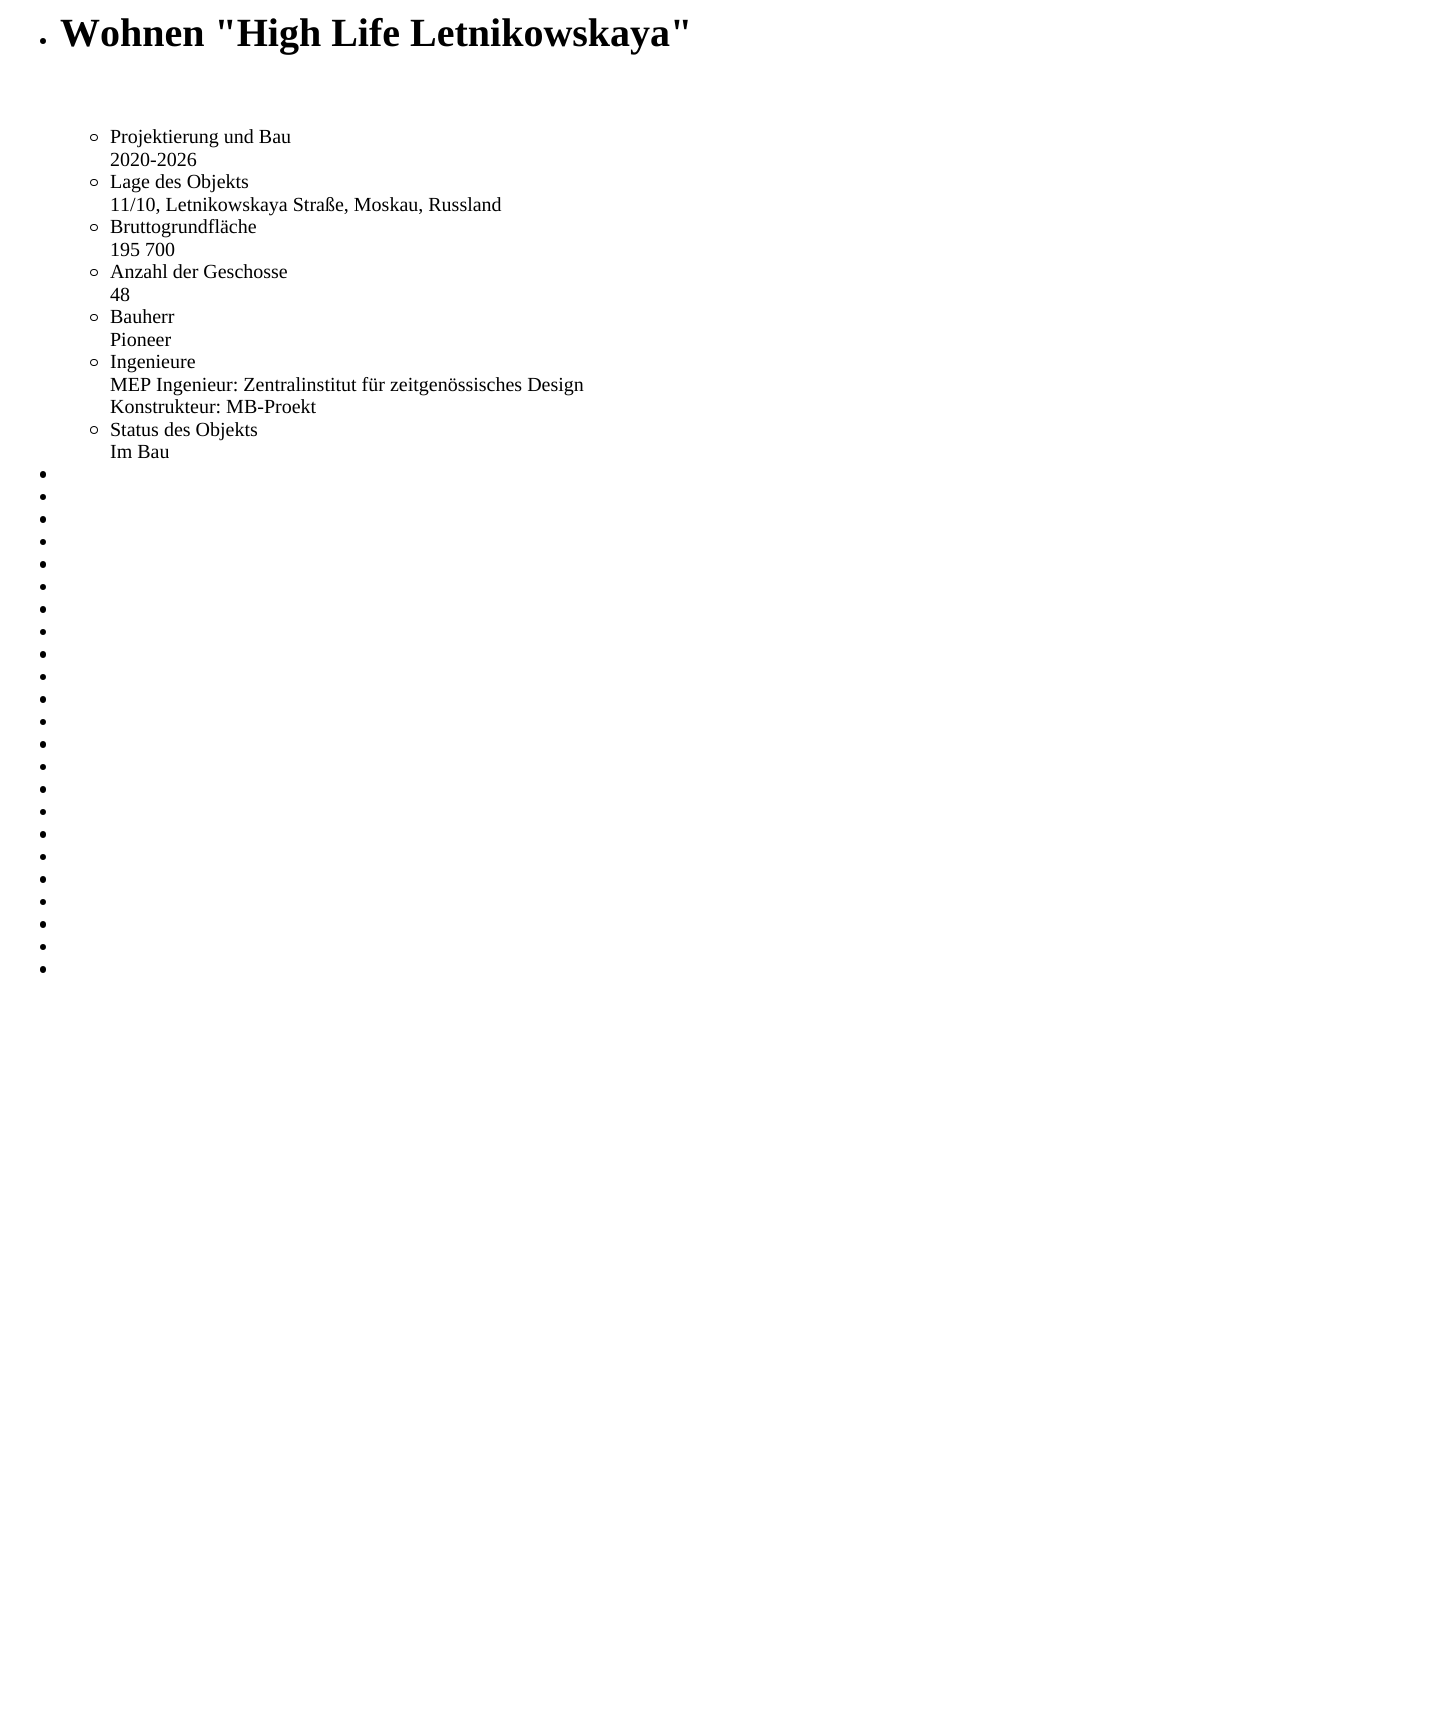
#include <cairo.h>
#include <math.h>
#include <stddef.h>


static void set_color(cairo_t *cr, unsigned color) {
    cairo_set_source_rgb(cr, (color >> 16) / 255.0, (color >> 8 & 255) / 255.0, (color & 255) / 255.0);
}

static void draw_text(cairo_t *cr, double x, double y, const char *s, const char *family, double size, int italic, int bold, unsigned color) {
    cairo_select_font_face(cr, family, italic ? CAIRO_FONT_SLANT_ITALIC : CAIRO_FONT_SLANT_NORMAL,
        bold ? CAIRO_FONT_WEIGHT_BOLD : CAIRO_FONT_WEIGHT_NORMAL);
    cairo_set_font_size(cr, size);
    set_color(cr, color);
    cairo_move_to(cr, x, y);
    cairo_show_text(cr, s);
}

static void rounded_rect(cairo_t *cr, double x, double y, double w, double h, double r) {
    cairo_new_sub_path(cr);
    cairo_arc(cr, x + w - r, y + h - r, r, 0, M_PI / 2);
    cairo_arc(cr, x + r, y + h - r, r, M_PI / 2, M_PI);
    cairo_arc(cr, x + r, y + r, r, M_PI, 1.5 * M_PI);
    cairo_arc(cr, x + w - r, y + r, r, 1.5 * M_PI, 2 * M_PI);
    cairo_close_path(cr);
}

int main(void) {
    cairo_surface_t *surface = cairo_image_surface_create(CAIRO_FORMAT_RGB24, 1439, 1732);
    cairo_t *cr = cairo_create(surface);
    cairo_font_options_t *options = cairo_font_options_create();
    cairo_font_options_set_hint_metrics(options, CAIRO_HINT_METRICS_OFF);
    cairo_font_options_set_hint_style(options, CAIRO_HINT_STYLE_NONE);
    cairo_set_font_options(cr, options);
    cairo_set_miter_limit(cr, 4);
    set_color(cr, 0xFFFFFF);
    cairo_paint(cr);
    set_color(cr, 0x000000);
    cairo_arc(cr, 43, 41, 3, 0, 2 * M_PI);
    cairo_fill(cr);
    draw_text(cr, 60, 46, "Wohnen \"High Life Letnikowskaya\"", "Liberation Serif", 40, 0, 1, 0x000000);
    rounded_rect(cr, 90.5, 134.5, 7, 6, 3);
    cairo_set_line_width(cr, 1);
    cairo_stroke(cr);
    draw_text(cr, 110, 143, "Projektierung und Bau", "Liberation Serif", 20, 0, 0, 0x000000);
    draw_text(cr, 110, 166, "2020-2026", "Liberation Serif", 20, 0, 0, 0x000000);
    rounded_rect(cr, 90.5, 179.5, 7, 6, 3);
    cairo_stroke(cr);
    draw_text(cr, 110, 188, "Lage des Objekts", "Liberation Serif", 20, 0, 0, 0x000000);
    draw_text(cr, 110, 211, "11/10, Letnikowskaya Straße, Moskau, Russland", "Liberation Serif", 20, 0, 0, 0x000000);
    rounded_rect(cr, 90.5, 224.5, 7, 6, 3);
    cairo_stroke(cr);
    draw_text(cr, 110, 233, "Bruttogrundfläche", "Liberation Serif", 20, 0, 0, 0x000000);
    draw_text(cr, 110, 256, "195 700", "Liberation Serif", 20, 0, 0, 0x000000);
    rounded_rect(cr, 90.5, 269.5, 7, 6, 3);
    cairo_stroke(cr);
    draw_text(cr, 110, 278, "Anzahl der Geschosse", "Liberation Serif", 20, 0, 0, 0x000000);
    draw_text(cr, 110, 301, "48", "Liberation Serif", 20, 0, 0, 0x000000);
    rounded_rect(cr, 90.5, 314.5, 7, 6, 3);
    cairo_stroke(cr);
    draw_text(cr, 110, 323, "Bauherr", "Liberation Serif", 20, 0, 0, 0x000000);
    draw_text(cr, 110, 346, "Pioneer", "Liberation Serif", 20, 0, 0, 0x000000);
    rounded_rect(cr, 90.5, 359.5, 7, 6, 3);
    cairo_stroke(cr);
    draw_text(cr, 110, 368, "Ingenieure", "Liberation Serif", 20, 0, 0, 0x000000);
    draw_text(cr, 110, 391, "MEP Ingenieur: Zentralinstitut für zeitgenössisches Design", "Liberation Serif", 20, 0, 0, 0x000000);
    draw_text(cr, 110, 413, "Konstrukteur: MB-Proekt", "Liberation Serif", 20, 0, 0, 0x000000);
    cairo_new_path(cr);
    cairo_arc(cr, 94, 430, 3.5, 0, 2 * M_PI);
    cairo_stroke(cr);
    draw_text(cr, 110, 436, "Status des Objekts", "Liberation Serif", 20, 0, 0, 0x000000);
    draw_text(cr, 110, 458, "Im Bau", "Liberation Serif", 20, 0, 0, 0x000000);
    rounded_rect(cr, 40, 471, 6, 7, 3);
    cairo_fill(cr);
    cairo_arc(cr, 43, 497, 3, 0, 2 * M_PI);
    cairo_fill(cr);
    rounded_rect(cr, 40, 516, 6, 7, 3);
    cairo_fill(cr);
    cairo_arc(cr, 43, 542, 3, 0, 2 * M_PI);
    cairo_fill(cr);
    rounded_rect(cr, 40, 561, 6, 7, 3);
    cairo_fill(cr);
    cairo_arc(cr, 43, 587, 3, 0, 2 * M_PI);
    cairo_fill(cr);
    rounded_rect(cr, 40, 606, 6, 7, 3);
    cairo_fill(cr);
    cairo_arc(cr, 43, 632, 3, 0, 2 * M_PI);
    cairo_fill(cr);
    rounded_rect(cr, 40, 651, 6, 7, 3);
    cairo_fill(cr);
    cairo_arc(cr, 43, 677, 3, 0, 2 * M_PI);
    cairo_fill(cr);
    rounded_rect(cr, 40, 696, 6, 7, 3);
    cairo_fill(cr);
    cairo_arc(cr, 43, 722, 3, 0, 2 * M_PI);
    cairo_fill(cr);
    rounded_rect(cr, 40, 741, 6, 7, 3);
    cairo_fill(cr);
    cairo_arc(cr, 43, 767, 3, 0, 2 * M_PI);
    cairo_fill(cr);
    rounded_rect(cr, 40, 786, 6, 7, 3);
    cairo_fill(cr);
    cairo_arc(cr, 43, 812, 3, 0, 2 * M_PI);
    cairo_fill(cr);
    rounded_rect(cr, 40, 831, 6, 7, 3);
    cairo_fill(cr);
    cairo_arc(cr, 43, 857, 3, 0, 2 * M_PI);
    cairo_fill(cr);
    rounded_rect(cr, 40, 876, 6, 7, 3);
    cairo_fill(cr);
    cairo_arc(cr, 43, 902, 3, 0, 2 * M_PI);
    cairo_fill(cr);
    rounded_rect(cr, 40, 921, 6, 7, 3);
    cairo_fill(cr);
    cairo_arc(cr, 43, 947, 3, 0, 2 * M_PI);
    cairo_fill(cr);
    rounded_rect(cr, 40, 966, 6, 7, 3);
    cairo_fill(cr);
    cairo_surface_write_to_png(surface, "output.png");
    cairo_font_options_destroy(options);
    cairo_destroy(cr);
    cairo_surface_destroy(surface);
    return 0;
}
